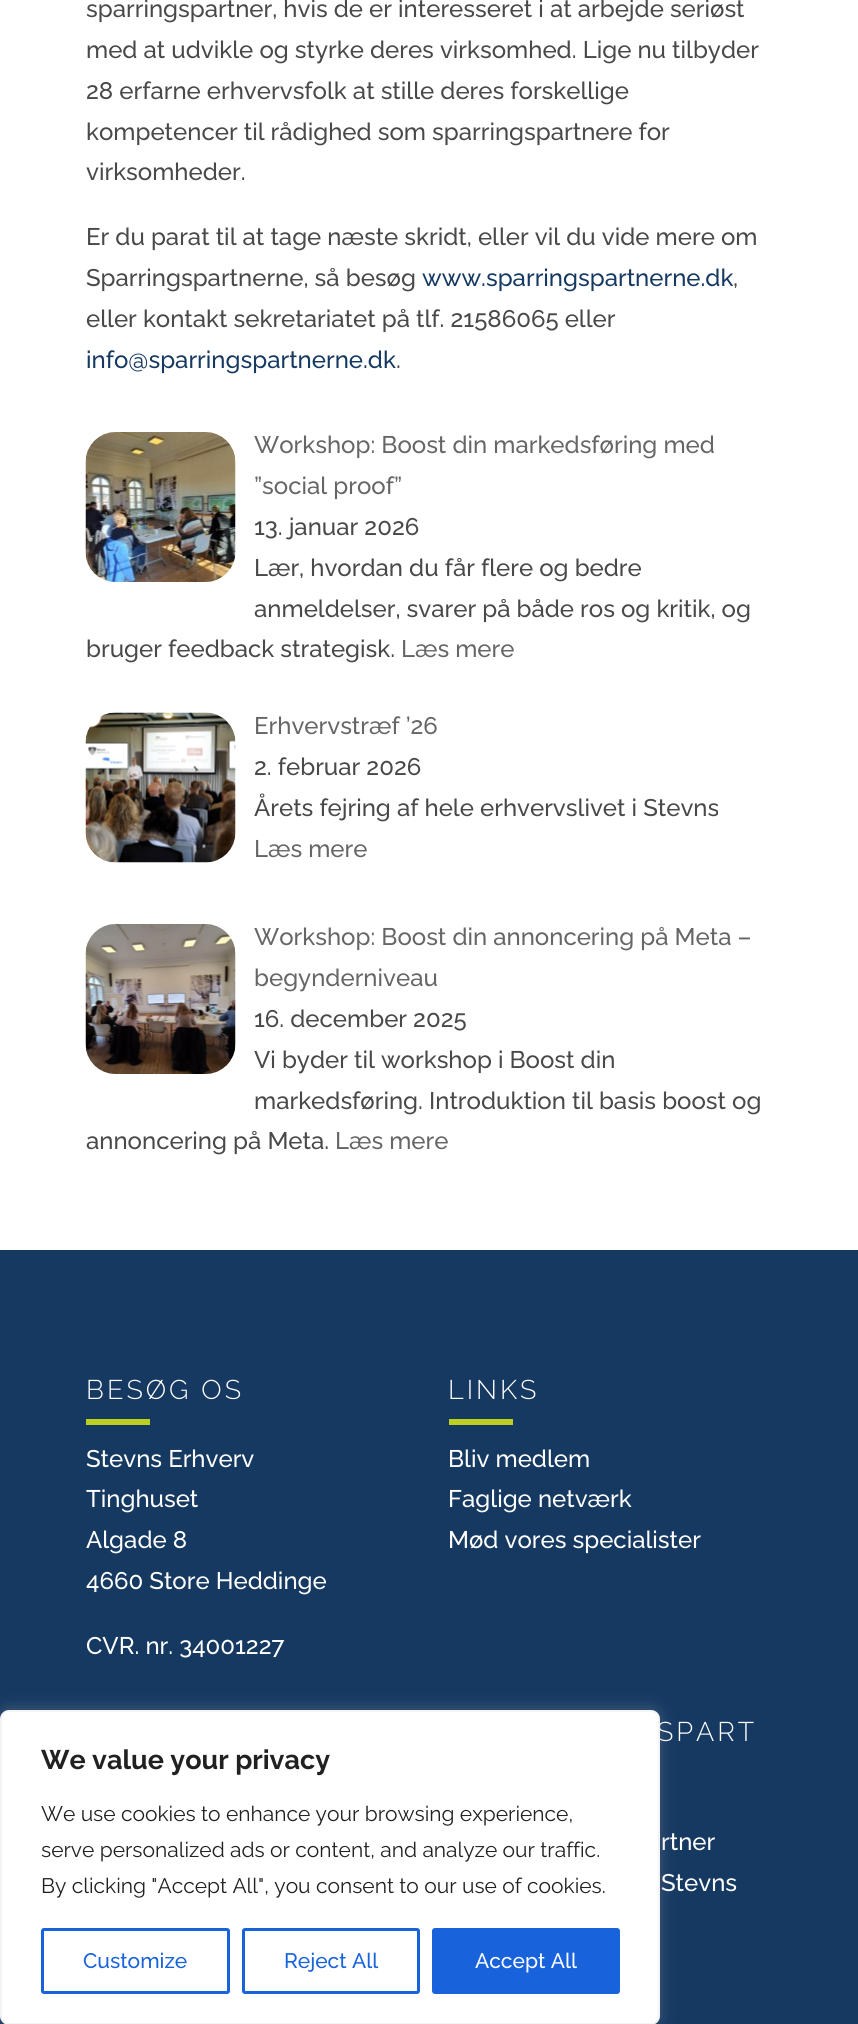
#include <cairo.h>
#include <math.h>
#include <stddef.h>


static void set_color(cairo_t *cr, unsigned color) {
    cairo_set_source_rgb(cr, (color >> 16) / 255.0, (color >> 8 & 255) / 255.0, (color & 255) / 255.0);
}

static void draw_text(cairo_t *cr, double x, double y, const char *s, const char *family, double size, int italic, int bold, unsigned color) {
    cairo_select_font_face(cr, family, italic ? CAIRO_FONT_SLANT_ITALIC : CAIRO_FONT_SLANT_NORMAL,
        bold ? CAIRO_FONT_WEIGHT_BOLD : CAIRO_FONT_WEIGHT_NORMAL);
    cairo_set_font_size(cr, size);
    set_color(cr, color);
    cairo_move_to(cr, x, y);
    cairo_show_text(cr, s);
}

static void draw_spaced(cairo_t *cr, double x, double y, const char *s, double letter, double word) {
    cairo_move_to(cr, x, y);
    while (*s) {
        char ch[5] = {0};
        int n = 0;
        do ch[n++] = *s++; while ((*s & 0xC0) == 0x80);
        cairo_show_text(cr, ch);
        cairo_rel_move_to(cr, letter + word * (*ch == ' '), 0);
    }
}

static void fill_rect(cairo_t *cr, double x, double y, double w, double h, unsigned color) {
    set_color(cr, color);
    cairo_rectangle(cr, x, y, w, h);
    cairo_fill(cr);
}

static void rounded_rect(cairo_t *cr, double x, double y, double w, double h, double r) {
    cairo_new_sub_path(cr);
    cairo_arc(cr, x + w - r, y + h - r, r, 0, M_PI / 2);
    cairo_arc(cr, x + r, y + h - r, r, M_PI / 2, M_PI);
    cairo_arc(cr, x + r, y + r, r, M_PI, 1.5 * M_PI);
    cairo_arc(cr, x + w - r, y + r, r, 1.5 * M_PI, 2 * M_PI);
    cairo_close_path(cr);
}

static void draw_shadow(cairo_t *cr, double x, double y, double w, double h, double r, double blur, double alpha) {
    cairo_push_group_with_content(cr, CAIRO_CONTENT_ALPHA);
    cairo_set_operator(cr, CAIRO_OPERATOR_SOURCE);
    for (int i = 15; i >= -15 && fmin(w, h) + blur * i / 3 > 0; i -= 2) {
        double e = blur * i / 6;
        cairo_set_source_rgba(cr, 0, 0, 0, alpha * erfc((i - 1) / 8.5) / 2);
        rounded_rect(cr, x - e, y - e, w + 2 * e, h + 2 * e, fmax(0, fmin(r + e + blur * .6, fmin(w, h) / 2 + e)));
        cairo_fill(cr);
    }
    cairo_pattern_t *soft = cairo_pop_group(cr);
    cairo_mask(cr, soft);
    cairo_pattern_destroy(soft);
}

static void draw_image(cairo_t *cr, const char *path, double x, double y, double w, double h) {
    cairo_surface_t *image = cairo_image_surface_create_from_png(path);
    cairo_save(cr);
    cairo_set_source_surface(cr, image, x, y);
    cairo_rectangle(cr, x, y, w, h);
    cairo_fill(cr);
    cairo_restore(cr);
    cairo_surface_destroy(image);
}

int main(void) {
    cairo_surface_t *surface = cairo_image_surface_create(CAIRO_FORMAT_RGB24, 858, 2024);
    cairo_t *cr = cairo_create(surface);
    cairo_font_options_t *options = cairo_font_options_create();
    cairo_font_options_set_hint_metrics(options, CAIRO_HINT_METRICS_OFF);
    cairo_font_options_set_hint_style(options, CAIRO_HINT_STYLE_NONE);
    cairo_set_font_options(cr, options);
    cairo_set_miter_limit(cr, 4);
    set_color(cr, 0xFFFFFF);
    cairo_paint(cr);
    draw_text(cr, 86, 17, "sparringspartner, hvis de er interesseret i at arbejde seriøst", "Raleway Thin", 24, 0, 0, 0x484948);
    draw_text(cr, 86, 58, "med at udvikle og styrke deres virksomhed. Lige nu tilbyder", "Raleway Thin", 24, 0, 0, 0x484948);
    draw_text(cr, 86, 99, "28 erfarne erhvervsfolk at stille deres forskellige", "Raleway Thin", 24, 0, 0, 0x484948);
    draw_text(cr, 86, 140, "kompetencer til rådighed som sparringspartnere for", "Raleway Thin", 24, 0, 0, 0x484948);
    draw_text(cr, 86, 180, "virksomheder.", "Raleway Thin", 24, 0, 0, 0x484948);
    draw_text(cr, 86, 245, "Er du parat til at tage næste skridt, eller vil du vide mere om", "Raleway Thin", 24, 0, 0, 0x484948);
    draw_text(cr, 86, 286, "Sparringspartnerne, så besøg", "Raleway Thin", 24, 0, 0, 0x484948);
    draw_text(cr, 422, 286, "www.sparringspartnerne.dk", "Raleway Thin", 24, 0, 0, 0x163962);
    draw_text(cr, 733, 286, ",", "Raleway Thin", 24, 0, 0, 0x484948);
    draw_text(cr, 86, 327, "eller kontakt sekretariatet på tlf. 21586065 eller", "Raleway Thin", 24, 0, 0, 0x484948);
    draw_text(cr, 86, 368, "info@sparringspartnerne.dk", "Raleway Thin", 24, 0, 0, 0x163962);
    draw_text(cr, 396, 368, ".", "Raleway Thin", 24, 0, 0, 0x484948);
    draw_image(cr, "assets/img1.png", 85, 432, 151, 150);
    draw_text(cr, 254, 453, "Workshop: Boost din markedsføring med", "Raleway Thin", 24, 0, 0, 0x666666);
    draw_text(cr, 254, 494, "”social proof”", "Raleway Thin", 24, 0, 0, 0x666666);
    draw_text(cr, 254, 535, "13. januar 2026", "Raleway Thin", 24, 0, 0, 0x484948);
    draw_text(cr, 254, 576, "Lær, hvordan du får flere og bedre", "Raleway Thin", 24, 0, 0, 0x484948);
    draw_text(cr, 254, 617, "anmeldelser, svarer på både ros og kritik, og", "Raleway Thin", 24, 0, 0, 0x484948);
    draw_text(cr, 86, 657, "bruger feedback strategisk.", "Raleway Thin", 24, 0, 0, 0x484948);
    draw_text(cr, 401, 657, "Læs mere", "Raleway Thin", 24, 0, 0, 0x666666);
    draw_image(cr, "assets/img2.png", 85, 712, 151, 151);
    draw_text(cr, 254, 734, "Erhvervstræf ’26", "Raleway Thin", 24, 0, 0, 0x666666);
    draw_text(cr, 254, 775, "2. februar 2026", "Raleway Thin", 24, 0, 0, 0x484948);
    draw_text(cr, 254, 816, "Årets fejring af hele erhvervslivet i Stevns", "Raleway Thin", 24, 0, 0, 0x484948);
    draw_text(cr, 254, 857, "Læs mere", "Raleway Thin", 24, 0, 0, 0x666666);
    draw_image(cr, "assets/img3.png", 85, 924, 151, 150);
    draw_text(cr, 254, 945, "Workshop: Boost din annoncering på Meta –", "Raleway Thin", 24, 0, 0, 0x666666);
    draw_text(cr, 254, 986, "begynderniveau", "Raleway Thin", 24, 0, 0, 0x666666);
    draw_text(cr, 254, 1027, "16. december 2025", "Raleway Thin", 24, 0, 0, 0x484948);
    draw_text(cr, 254, 1068, "Vi byder til workshop i Boost din", "Raleway Thin", 24, 0, 0, 0x484948);
    draw_text(cr, 254, 1109, "markedsføring. Introduktion til basis boost og", "Raleway Thin", 24, 0, 0, 0x484948);
    draw_text(cr, 86, 1149, "annoncering på Meta.", "Raleway Thin", 24, 0, 0, 0x484948);
    draw_text(cr, 335, 1149, "Læs mere", "Raleway Thin", 24, 0, 0, 0x666666);
    fill_rect(cr, 0, 1250, 858, 774, 0x163962);
    cairo_select_font_face(cr, "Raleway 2 Thin", CAIRO_FONT_SLANT_NORMAL, CAIRO_FONT_WEIGHT_NORMAL);
    cairo_set_font_size(cr, 27);
    set_color(cr, 0xFFFFFF);
    draw_spaced(cr, 86, 1399, "BESØG OS", 3, 0);
    fill_rect(cr, 86, 1419, 64, 6, 0xBED01F);
    draw_text(cr, 86, 1467, "Stevns Erhverv", "Raleway Thin", 24, 0, 0, 0xFFFFFF);
    draw_text(cr, 86, 1507, "Tinghuset", "Raleway Thin", 24, 0, 0, 0xFFFFFF);
    draw_text(cr, 86, 1548, "Algade 8", "Raleway Thin", 24, 0, 0, 0xFFFFFF);
    draw_text(cr, 86, 1589, "4660 Store Heddinge", "Raleway Thin", 24, 0, 0, 0xFFFFFF);
    draw_text(cr, 86, 1654, "CVR. nr. 34001227", "Raleway Thin", 24, 0, 0, 0xFFFFFF);
    cairo_select_font_face(cr, "Raleway 2 Thin", CAIRO_FONT_SLANT_NORMAL, CAIRO_FONT_WEIGHT_NORMAL);
    cairo_set_font_size(cr, 27);
    draw_spaced(cr, 448, 1399, "LINKS", 3, 0);
    fill_rect(cr, 449, 1419, 64, 6, 0xBED01F);
    draw_text(cr, 448, 1467, "Bliv medlem", "Raleway Thin", 24, 0, 0, 0xFFFFFF);
    draw_text(cr, 448, 1507, "Faglige netværk", "Raleway Thin", 24, 0, 0, 0xFFFFFF);
    draw_text(cr, 448, 1548, "Mød vores specialister", "Raleway Thin", 24, 0, 0, 0xFFFFFF);
    cairo_select_font_face(cr, "Raleway 2 Thin", CAIRO_FONT_SLANT_NORMAL, CAIRO_FONT_WEIGHT_NORMAL);
    cairo_set_font_size(cr, 27);
    draw_spaced(cr, 657, 1741, "SPART", 3, 0);
    draw_text(cr, 661, 1850, "rtner", "Raleway Thin", 24, 0, 0, 0xFFFFFF);
    draw_text(cr, 661, 1891, "Stevns", "Raleway Thin", 24, 0, 0, 0xFFFFFF);
    set_color(cr, 0xACABAB);
    draw_shadow(cr, 0, 1709, 660, 315, 9, 7.5, 0.3);
    set_color(cr, 0xFFFFFF);
    rounded_rect(cr, 1, 1711, 658, 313, 8);
    cairo_fill_preserve(cr);
    set_color(cr, 0xF4F4F4);
    cairo_stroke(cr);
    draw_text(cr, 41, 1769, "We value your privacy", "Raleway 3 Thin", 27, 0, 0, 0x212121);
    draw_text(cr, 41, 1821, "We use cookies to enhance your browsing experience,", "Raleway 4 Thin", 21, 0, 0, 0x212121);
    draw_text(cr, 41, 1857, "serve personalized ads or content, and analyze our traffic.", "Raleway 4 Thin", 21, 0, 0, 0x212121);
    draw_text(cr, 41, 1893, "By clicking \"Accept All\", you consent to our use of cookies.", "Raleway 4 Thin", 21, 0, 0, 0x212121);
    rounded_rect(cr, 42.5, 1929.5, 186, 63, 1.5);
    set_color(cr, 0x1863DC);
    cairo_set_line_width(cr, 3);
    cairo_stroke(cr);
    draw_text(cr, 83, 1968, "Customize", "Raleway Thin", 21, 0, 0, 0x1863DC);
    rounded_rect(cr, 243.5, 1929.5, 175, 63, 1.5);
    cairo_stroke(cr);
    draw_text(cr, 284, 1968, "Reject All", "Raleway Thin", 21, 0, 0, 0x1863DC);
    rounded_rect(cr, 433.5, 1929.5, 185, 63, 1.5);
    cairo_fill_preserve(cr);
    cairo_stroke(cr);
    draw_text(cr, 475, 1968, "Accept All", "Raleway Thin", 21, 0, 0, 0xFFFFFF);
    cairo_surface_write_to_png(surface, "output.png");
    cairo_font_options_destroy(options);
    cairo_destroy(cr);
    cairo_surface_destroy(surface);
    return 0;
}
